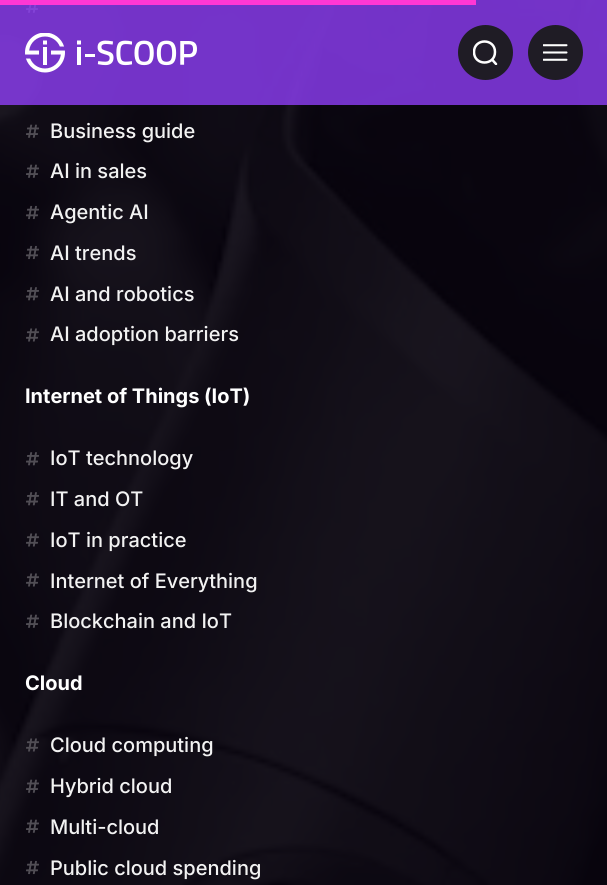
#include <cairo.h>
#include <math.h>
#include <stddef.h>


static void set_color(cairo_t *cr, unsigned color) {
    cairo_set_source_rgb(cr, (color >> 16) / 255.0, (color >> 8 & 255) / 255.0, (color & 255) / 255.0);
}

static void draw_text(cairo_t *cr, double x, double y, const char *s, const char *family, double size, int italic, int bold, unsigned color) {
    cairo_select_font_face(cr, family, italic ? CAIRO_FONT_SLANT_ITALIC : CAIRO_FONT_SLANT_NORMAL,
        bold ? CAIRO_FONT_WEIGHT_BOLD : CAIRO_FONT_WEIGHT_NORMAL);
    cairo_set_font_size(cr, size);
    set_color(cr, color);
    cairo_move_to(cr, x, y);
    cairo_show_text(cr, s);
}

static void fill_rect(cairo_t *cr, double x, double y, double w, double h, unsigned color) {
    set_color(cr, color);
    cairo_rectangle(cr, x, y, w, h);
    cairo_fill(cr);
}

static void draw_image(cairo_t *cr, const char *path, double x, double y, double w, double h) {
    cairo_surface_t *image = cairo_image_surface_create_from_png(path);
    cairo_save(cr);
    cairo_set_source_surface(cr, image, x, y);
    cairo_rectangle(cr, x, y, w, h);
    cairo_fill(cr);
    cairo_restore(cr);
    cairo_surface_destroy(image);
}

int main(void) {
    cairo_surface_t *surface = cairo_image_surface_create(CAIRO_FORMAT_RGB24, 607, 885);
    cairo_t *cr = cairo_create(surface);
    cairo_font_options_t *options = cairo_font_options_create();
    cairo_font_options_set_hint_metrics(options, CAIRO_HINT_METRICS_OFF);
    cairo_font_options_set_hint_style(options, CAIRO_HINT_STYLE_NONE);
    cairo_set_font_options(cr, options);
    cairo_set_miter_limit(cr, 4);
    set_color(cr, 0xFFFFFF);
    cairo_paint(cr);
    draw_image(cr, "assets/img3.png", 0, 0, 607, 885);
    draw_image(cr, "assets/img4.png", 26, 5, 12, 8);
    cairo_set_source_rgba(cr, 0.576, 0.251, 0.996, 0.77);
    cairo_rectangle(cr, 0, 0, 607, 105);
    cairo_fill(cr);
    draw_image(cr, "assets/img1.png", 25, 33, 172, 40);
    set_color(cr, 0x1F1C25);
    cairo_arc(cr, 485.5, 52.5, 27.5, 0, 2 * M_PI);
    cairo_fill(cr);
    cairo_save(cr);
    cairo_rectangle(cr, 473, 40, 25, 25);
    cairo_clip(cr);
    cairo_new_path(cr);
    cairo_move_to(cr, 496, 64);
    cairo_line_to(cr, 492, 59.5);
    cairo_move_to(cr, 495, 52);
    cairo_curve_to(cr, 495, 66, 474, 66, 474, 52);
    cairo_curve_to(cr, 474, 38, 495, 38, 495, 52);
    cairo_close_path(cr);
    set_color(cr, 0xFFFFFF);
    cairo_set_line_width(cr, 2.5);
    cairo_set_line_cap(cr, CAIRO_LINE_CAP_ROUND);
    cairo_set_line_join(cr, CAIRO_LINE_JOIN_ROUND);
    cairo_stroke(cr);
    cairo_restore(cr);
    cairo_arc(cr, 555.5, 52.5, 27.5, 0, 2 * M_PI);
    cairo_fill(cr);
    draw_image(cr, "assets/img2.png", 543, 44, 25, 17);
    fill_rect(cr, 0, 0, 476, 5, 0xFF37D4);
    draw_image(cr, "assets/img5.png", 26, 124, 13, 14);
    draw_text(cr, 50, 138, "Business guide", "Inter Medium", 20, 0, 0, 0xF2F2F2);
    draw_image(cr, "assets/img6.png", 26, 164, 13, 14);
    draw_text(cr, 50, 178, "AI in sales", "Inter Medium", 20, 0, 0, 0xF2F2F2);
    draw_image(cr, "assets/img7.png", 26, 205, 13, 15);
    draw_text(cr, 50, 219, "Agentic AI", "Inter Medium", 20, 0, 0, 0xF2F2F2);
    draw_image(cr, "assets/img8.png", 26, 245, 13, 15);
    draw_text(cr, 50, 260, "AI trends", "Inter Medium", 20, 0, 0, 0xF2F2F2);
    draw_image(cr, "assets/img9.png", 26, 287, 13, 14);
    draw_text(cr, 50, 301, "AI and robotics", "Inter Medium", 20, 0, 0, 0xF2F2F2);
    draw_image(cr, "assets/img10.png", 26, 328, 13, 14);
    draw_text(cr, 50, 341, "AI adoption barriers", "Inter Medium", 20, 0, 0, 0xF2F2F2);
    draw_text(cr, 25, 403, "Internet of Things (IoT)", "Inter", 20, 0, 1, 0xFFFFFF);
    draw_image(cr, "assets/img11.png", 26, 452, 13, 14);
    draw_text(cr, 50, 465, "IoT technology", "Inter Medium", 20, 0, 0, 0xF2F2F2);
    draw_image(cr, "assets/img12.png", 26, 492, 13, 14);
    draw_text(cr, 50, 506, "IT and OT", "Inter Medium", 20, 0, 0, 0xF2F2F2);
    draw_image(cr, "assets/img13.png", 26, 533, 13, 14);
    draw_text(cr, 50, 547, "IoT in practice", "Inter Medium", 20, 0, 0, 0xF2F2F2);
    draw_image(cr, "assets/img14.png", 26, 573, 13, 14);
    draw_text(cr, 50, 588, "Internet of Everything", "Inter Medium", 20, 0, 0, 0xF2F2F2);
    draw_image(cr, "assets/img15.png", 26, 614, 13, 14);
    draw_text(cr, 50, 628, "Blockchain and IoT", "Inter Medium", 20, 0, 0, 0xF2F2F2);
    draw_text(cr, 25, 690, "Cloud", "Inter", 20, 0, 1, 0xFFFFFF);
    draw_image(cr, "assets/img16.png", 26, 738, 13, 14);
    draw_text(cr, 50, 752, "Cloud computing", "Inter Medium", 20, 0, 0, 0xF2F2F2);
    draw_image(cr, "assets/img17.png", 26, 779, 13, 14);
    draw_text(cr, 50, 793, "Hybrid cloud", "Inter Medium", 20, 0, 0, 0xF2F2F2);
    draw_image(cr, "assets/img18.png", 26, 819, 13, 14);
    draw_text(cr, 50, 834, "Multi-cloud", "Inter Medium", 20, 0, 0, 0xF2F2F2);
    draw_image(cr, "assets/img19.png", 26, 860, 13, 15);
    draw_text(cr, 50, 875, "Public cloud spending", "Inter Medium", 20, 0, 0, 0xF2F2F2);
    cairo_surface_write_to_png(surface, "output.png");
    cairo_font_options_destroy(options);
    cairo_destroy(cr);
    cairo_surface_destroy(surface);
    return 0;
}
